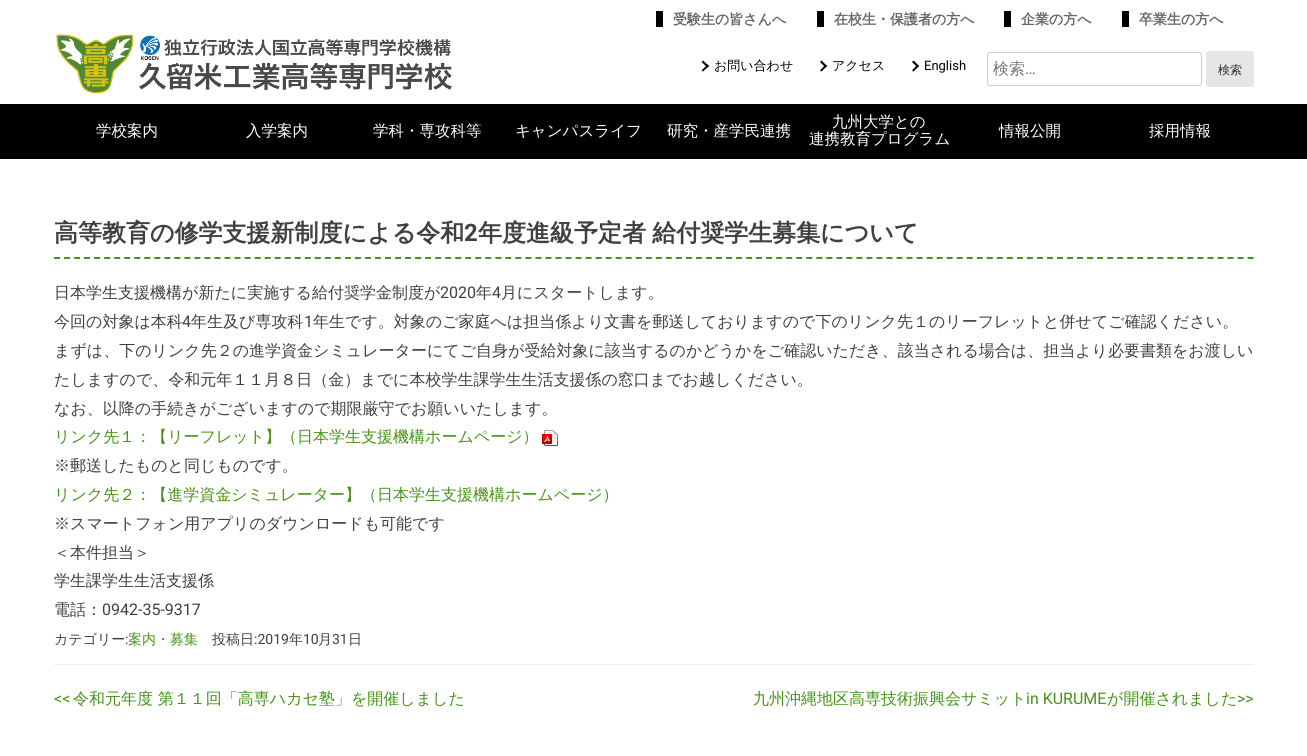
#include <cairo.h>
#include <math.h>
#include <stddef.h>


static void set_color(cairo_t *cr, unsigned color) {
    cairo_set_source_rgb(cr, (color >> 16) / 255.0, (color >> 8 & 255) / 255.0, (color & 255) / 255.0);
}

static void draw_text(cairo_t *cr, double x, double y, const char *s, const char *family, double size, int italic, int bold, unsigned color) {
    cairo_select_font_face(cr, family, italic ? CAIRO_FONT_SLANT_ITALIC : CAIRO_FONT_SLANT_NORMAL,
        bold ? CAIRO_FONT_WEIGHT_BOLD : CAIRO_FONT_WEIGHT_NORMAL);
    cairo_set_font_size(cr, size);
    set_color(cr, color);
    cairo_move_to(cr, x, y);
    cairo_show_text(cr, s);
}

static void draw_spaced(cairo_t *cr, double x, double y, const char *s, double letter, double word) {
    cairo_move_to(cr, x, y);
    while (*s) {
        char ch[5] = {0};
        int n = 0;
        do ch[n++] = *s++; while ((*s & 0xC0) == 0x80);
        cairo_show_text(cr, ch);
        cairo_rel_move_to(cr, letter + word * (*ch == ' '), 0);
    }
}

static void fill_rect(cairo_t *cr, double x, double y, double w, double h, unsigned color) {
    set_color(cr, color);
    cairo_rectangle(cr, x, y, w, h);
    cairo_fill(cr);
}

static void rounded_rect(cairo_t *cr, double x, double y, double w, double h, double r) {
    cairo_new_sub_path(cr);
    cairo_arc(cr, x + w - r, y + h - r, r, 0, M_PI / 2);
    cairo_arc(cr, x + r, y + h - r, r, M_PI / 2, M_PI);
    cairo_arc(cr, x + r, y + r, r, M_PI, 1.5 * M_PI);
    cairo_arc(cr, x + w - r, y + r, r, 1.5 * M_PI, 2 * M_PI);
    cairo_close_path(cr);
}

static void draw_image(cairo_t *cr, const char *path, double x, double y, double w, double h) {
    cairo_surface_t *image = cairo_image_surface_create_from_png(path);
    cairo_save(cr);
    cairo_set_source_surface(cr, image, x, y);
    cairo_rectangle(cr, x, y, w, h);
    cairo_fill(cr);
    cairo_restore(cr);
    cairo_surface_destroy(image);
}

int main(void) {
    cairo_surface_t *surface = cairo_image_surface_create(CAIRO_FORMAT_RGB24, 1307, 756);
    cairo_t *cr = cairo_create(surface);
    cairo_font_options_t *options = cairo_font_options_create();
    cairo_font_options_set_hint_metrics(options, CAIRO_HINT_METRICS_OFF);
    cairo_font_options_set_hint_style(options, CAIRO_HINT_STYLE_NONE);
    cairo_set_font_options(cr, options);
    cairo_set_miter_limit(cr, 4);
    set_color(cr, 0xFFFFFF);
    cairo_paint(cr);
    draw_text(cr, 673, 24, "受験生の皆さんへ", "WenQuanYi Zen Hei", 14, 0, 1, 0x666666);
    fill_rect(cr, 656, 11, 7, 16, 0x000000);
    draw_text(cr, 834, 24, "在校生・保護者の方へ", "WenQuanYi Zen Hei", 14, 0, 1, 0x666666);
    fill_rect(cr, 817, 11, 7, 16, 0x000000);
    draw_text(cr, 1021, 24, "企業の方へ", "WenQuanYi Zen Hei", 14, 0, 1, 0x666666);
    fill_rect(cr, 1004, 11, 7, 16, 0x000000);
    draw_text(cr, 1139, 24, "卒業生の方へ", "WenQuanYi Zen Hei", 14, 0, 1, 0x666666);
    fill_rect(cr, 1122, 11, 7, 16, 0x000000);
    draw_image(cr, "assets/img1.png", 56, 34, 396, 60);
    cairo_new_path(cr);
    cairo_move_to(cr, 703, 60.5);
    cairo_line_to(cr, 709, 66);
    cairo_line_to(cr, 707.5, 67.5);
    cairo_line_to(cr, 701.5, 62);
    cairo_close_path(cr);
    cairo_fill(cr);
    cairo_new_path(cr);
    cairo_move_to(cr, 707.5, 64.5);
    cairo_line_to(cr, 709, 66);
    cairo_line_to(cr, 703, 71.5);
    cairo_line_to(cr, 701.5, 70.5);
    cairo_close_path(cr);
    cairo_fill(cr);
    draw_text(cr, 714, 70, "お問い合わせ", "WenQuanYi Zen Hei Medium", 13, 0, 0, 0x000000);
    cairo_new_path(cr);
    cairo_move_to(cr, 821.5, 60.5);
    cairo_line_to(cr, 827, 66);
    cairo_line_to(cr, 825.5, 67.5);
    cairo_line_to(cr, 820, 62);
    cairo_close_path(cr);
    cairo_fill(cr);
    cairo_new_path(cr);
    cairo_move_to(cr, 825.5, 64.5);
    cairo_line_to(cr, 827, 66);
    cairo_line_to(cr, 821.5, 71.5);
    cairo_line_to(cr, 820, 70.5);
    cairo_close_path(cr);
    cairo_fill(cr);
    draw_text(cr, 832, 70, "アクセス", "WenQuanYi Zen Hei Medium", 13, 0, 0, 0x000000);
    cairo_new_path(cr);
    cairo_move_to(cr, 913.5, 60.5);
    cairo_line_to(cr, 919, 66);
    cairo_line_to(cr, 917.5, 67.5);
    cairo_line_to(cr, 912, 62);
    cairo_close_path(cr);
    cairo_fill(cr);
    cairo_new_path(cr);
    cairo_move_to(cr, 917.5, 64.5);
    cairo_line_to(cr, 919, 66);
    cairo_line_to(cr, 913.5, 71.5);
    cairo_line_to(cr, 912, 70.5);
    cairo_close_path(cr);
    cairo_fill(cr);
    draw_text(cr, 924, 70, "English", "Roboto", 13, 0, 0, 0x000000);
    rounded_rect(cr, 987.5, 52.5, 214, 33, 2.5);
    set_color(cr, 0xCCCCCC);
    cairo_set_line_width(cr, 1);
    cairo_stroke(cr);
    draw_text(cr, 993, 74, "検索", "WenQuanYi Zen Hei Medium", 16, 0, 0, 0x757575);
    draw_text(cr, 1025, 74, "…", "Roboto", 16, 0, 0, 0x757575);
    set_color(cr, 0xE6E6E6);
    rounded_rect(cr, 1206, 51, 48, 36, 3);
    cairo_fill(cr);
    draw_text(cr, 1218, 74, "検索", "WenQuanYi Zen Hei Medium", 12, 0, 0, 0x2E2E2E);
    fill_rect(cr, 0, 104, 1307, 55, 0x000000);
    draw_text(cr, 96, 136, "学校案内", "WenQuanYi Zen Hei Medium", 15.5, 0, 0, 0xFFFFFF);
    draw_text(cr, 246, 136, "入学案内", "WenQuanYi Zen Hei Medium", 15.5, 0, 0, 0xFFFFFF);
    draw_text(cr, 373, 136, "学科・専攻科等", "WenQuanYi Zen Hei Medium", 15.5, 0, 0, 0xFFFFFF);
    draw_text(cr, 515, 136, "キャンパスライフ", "WenQuanYi Zen Hei Medium", 15.5, 0, 0, 0xFFFFFF);
    draw_text(cr, 667, 136, "研究・産学民連携", "WenQuanYi Zen Hei Medium", 15.5, 0, 0, 0xFFFFFF);
    draw_text(cr, 832, 127, "九州大学との", "WenQuanYi Zen Hei Medium", 15.5, 0, 0, 0xFFFFFF);
    draw_text(cr, 809, 144, "連携教育プログラム", "WenQuanYi Zen Hei Medium", 15.5, 0, 0, 0xFFFFFF);
    draw_text(cr, 999, 136, "情報公開", "WenQuanYi Zen Hei Medium", 15.5, 0, 0, 0xFFFFFF);
    draw_text(cr, 1149, 136, "採用情報", "WenQuanYi Zen Hei Medium", 15.5, 0, 0, 0xFFFFFF);
    cairo_new_path(cr);
    cairo_move_to(cr, 54, 258);
    cairo_line_to(cr, 1254, 258);
    set_color(cr, 0x469417);
    cairo_set_line_width(cr, 2);
    cairo_set_dash(cr, (double[]){6, 4.03}, 2, 0);
    cairo_stroke(cr);
    draw_text(cr, 54, 241, "高等教育の修学支援新制度による令和", "WenQuanYi Zen Hei", 24, 0, 1, 0x404040);
    draw_text(cr, 464, 241, "2", "Roboto", 24, 0, 1, 0x404040);
    cairo_select_font_face(cr, "WenQuanYi Zen Hei", CAIRO_FONT_SLANT_NORMAL, CAIRO_FONT_WEIGHT_BOLD);
    draw_spaced(cr, 478, 241, "年度進級予定者 給付奨学生募集について", 0, -1);
    draw_text(cr, 54, 298, "日本学生支援機構が新たに実施する給付奨学金制度が", "WenQuanYi Zen Hei Medium", 16, 0, 0, 0x404040);
    draw_text(cr, 440, 298, "2020", "Roboto", 16, 0, 0, 0x404040);
    draw_text(cr, 476, 298, "年", "WenQuanYi Zen Hei Medium", 16, 0, 0, 0x404040);
    draw_text(cr, 492, 298, "4", "Roboto", 16, 0, 0, 0x404040);
    draw_text(cr, 501, 298, "月にスタートします。", "WenQuanYi Zen Hei Medium", 16, 0, 0, 0x404040);
    draw_text(cr, 54, 327, "今回の対象は本科", "WenQuanYi Zen Hei Medium", 16, 0, 0, 0x404040);
    draw_text(cr, 182, 327, "4", "Roboto", 16, 0, 0, 0x404040);
    draw_text(cr, 191, 327, "年生及び専攻科", "WenQuanYi Zen Hei Medium", 16, 0, 0, 0x404040);
    draw_text(cr, 304, 327, "1", "Roboto", 16, 0, 0, 0x404040);
    draw_text(cr, 313, 327, "年生です。対象のご家庭へは担当係より文書を郵送しておりますので下のリンク先１のリーフレットと併せてご確認ください。", "WenQuanYi Zen Hei Medium", 16, 0, 0, 0x404040);
    draw_text(cr, 54, 356, "まずは、下のリンク先２の進学資金シミュレーターにてご自身が受給対象に該当するのかどうかをご確認いただき、該当される場合は、担当より必要書類をお渡しい", "WenQuanYi Zen Hei Medium", 16, 0, 0, 0x404040);
    draw_text(cr, 54, 385, "たしますので、令和元年１１月８日（金）までに本校学生課学生生活支援係の窓口までお越しください。", "WenQuanYi Zen Hei Medium", 16, 0, 0, 0x404040);
    draw_text(cr, 54, 414, "なお、以降の手続きがございますので期限厳守でお願いいたします。", "WenQuanYi Zen Hei Medium", 16, 0, 0, 0x404040);
    draw_image(cr, "assets/img2.png", 542, 430, 16, 16);
    draw_text(cr, 54, 442, "リンク先１：【リーフレット】（日本学生支援機構ホームページ）", "WenQuanYi Zen Hei Medium", 16, 0, 0, 0x469417);
    draw_text(cr, 54, 471, "※郵送したものと同じものです。", "WenQuanYi Zen Hei Medium", 16, 0, 0, 0x404040);
    draw_text(cr, 54, 500, "リンク先２：【進学資金シミュレーター】（日本学生支援機構ホームページ）", "WenQuanYi Zen Hei Medium", 16, 0, 0, 0x469417);
    draw_text(cr, 54, 529, "※スマートフォン用アプリのダウンロードも可能です", "WenQuanYi Zen Hei Medium", 16, 0, 0, 0x404040);
    draw_text(cr, 54, 558, "＜本件担当＞", "WenQuanYi Zen Hei Medium", 16, 0, 0, 0x404040);
    draw_text(cr, 54, 586, "学生課学生生活支援係", "WenQuanYi Zen Hei Medium", 16, 0, 0, 0x404040);
    draw_text(cr, 54, 615, "電話：", "WenQuanYi Zen Hei Medium", 16, 0, 0, 0x404040);
    draw_text(cr, 102, 615, "0942-35-9317", "Roboto", 16, 0, 0, 0x404040);
    draw_text(cr, 54, 644, "カテゴリー", "WenQuanYi Zen Hei Medium", 14, 0, 0, 0x404040);
    draw_text(cr, 125, 644, ":", "Roboto", 14, 0, 0, 0x404040);
    draw_text(cr, 128, 644, "案内・募集", "WenQuanYi Zen Hei Medium", 14, 0, 0, 0x469417);
    draw_text(cr, 212, 644, "投稿日", "WenQuanYi Zen Hei Medium", 14, 0, 0, 0x404040);
    draw_text(cr, 254, 644, ":2019", "Roboto", 14, 0, 0, 0x404040);
    draw_text(cr, 289, 644, "年", "WenQuanYi Zen Hei Medium", 14, 0, 0, 0x404040);
    draw_text(cr, 303, 644, "10", "Roboto", 14, 0, 0, 0x404040);
    draw_text(cr, 318, 644, "月", "WenQuanYi Zen Hei Medium", 14, 0, 0, 0x404040);
    draw_text(cr, 332, 644, "31", "Roboto", 14, 0, 0, 0x404040);
    draw_text(cr, 348, 644, "日", "WenQuanYi Zen Hei Medium", 14, 0, 0, 0x404040);
    fill_rect(cr, 54, 664, 1200, 1, 0xEEEEEE);
    draw_text(cr, 54, 704, "<<", "Roboto", 16, 0, 0, 0x469417);
    draw_text(cr, 73, 704, "令和元年度 第１１回「高専ハカセ塾」を開催しました", "WenQuanYi Zen Hei Medium", 16, 0, 0, 0x469417);
    draw_text(cr, 753, 704, "九州沖縄地区高専技術振興会サミット", "WenQuanYi Zen Hei Medium", 16, 0, 0, 0x469417);
    draw_text(cr, 1026, 704, "in KURUME", "Roboto", 16, 0, 0, 0x469417);
    draw_text(cr, 1107, 704, "が開催されました", "WenQuanYi Zen Hei Medium", 16, 0, 0, 0x469417);
    draw_text(cr, 1237, 704, ">>", "Roboto", 16, 0, 0, 0x469417);
    cairo_surface_write_to_png(surface, "output.png");
    cairo_font_options_destroy(options);
    cairo_destroy(cr);
    cairo_surface_destroy(surface);
    return 0;
}
